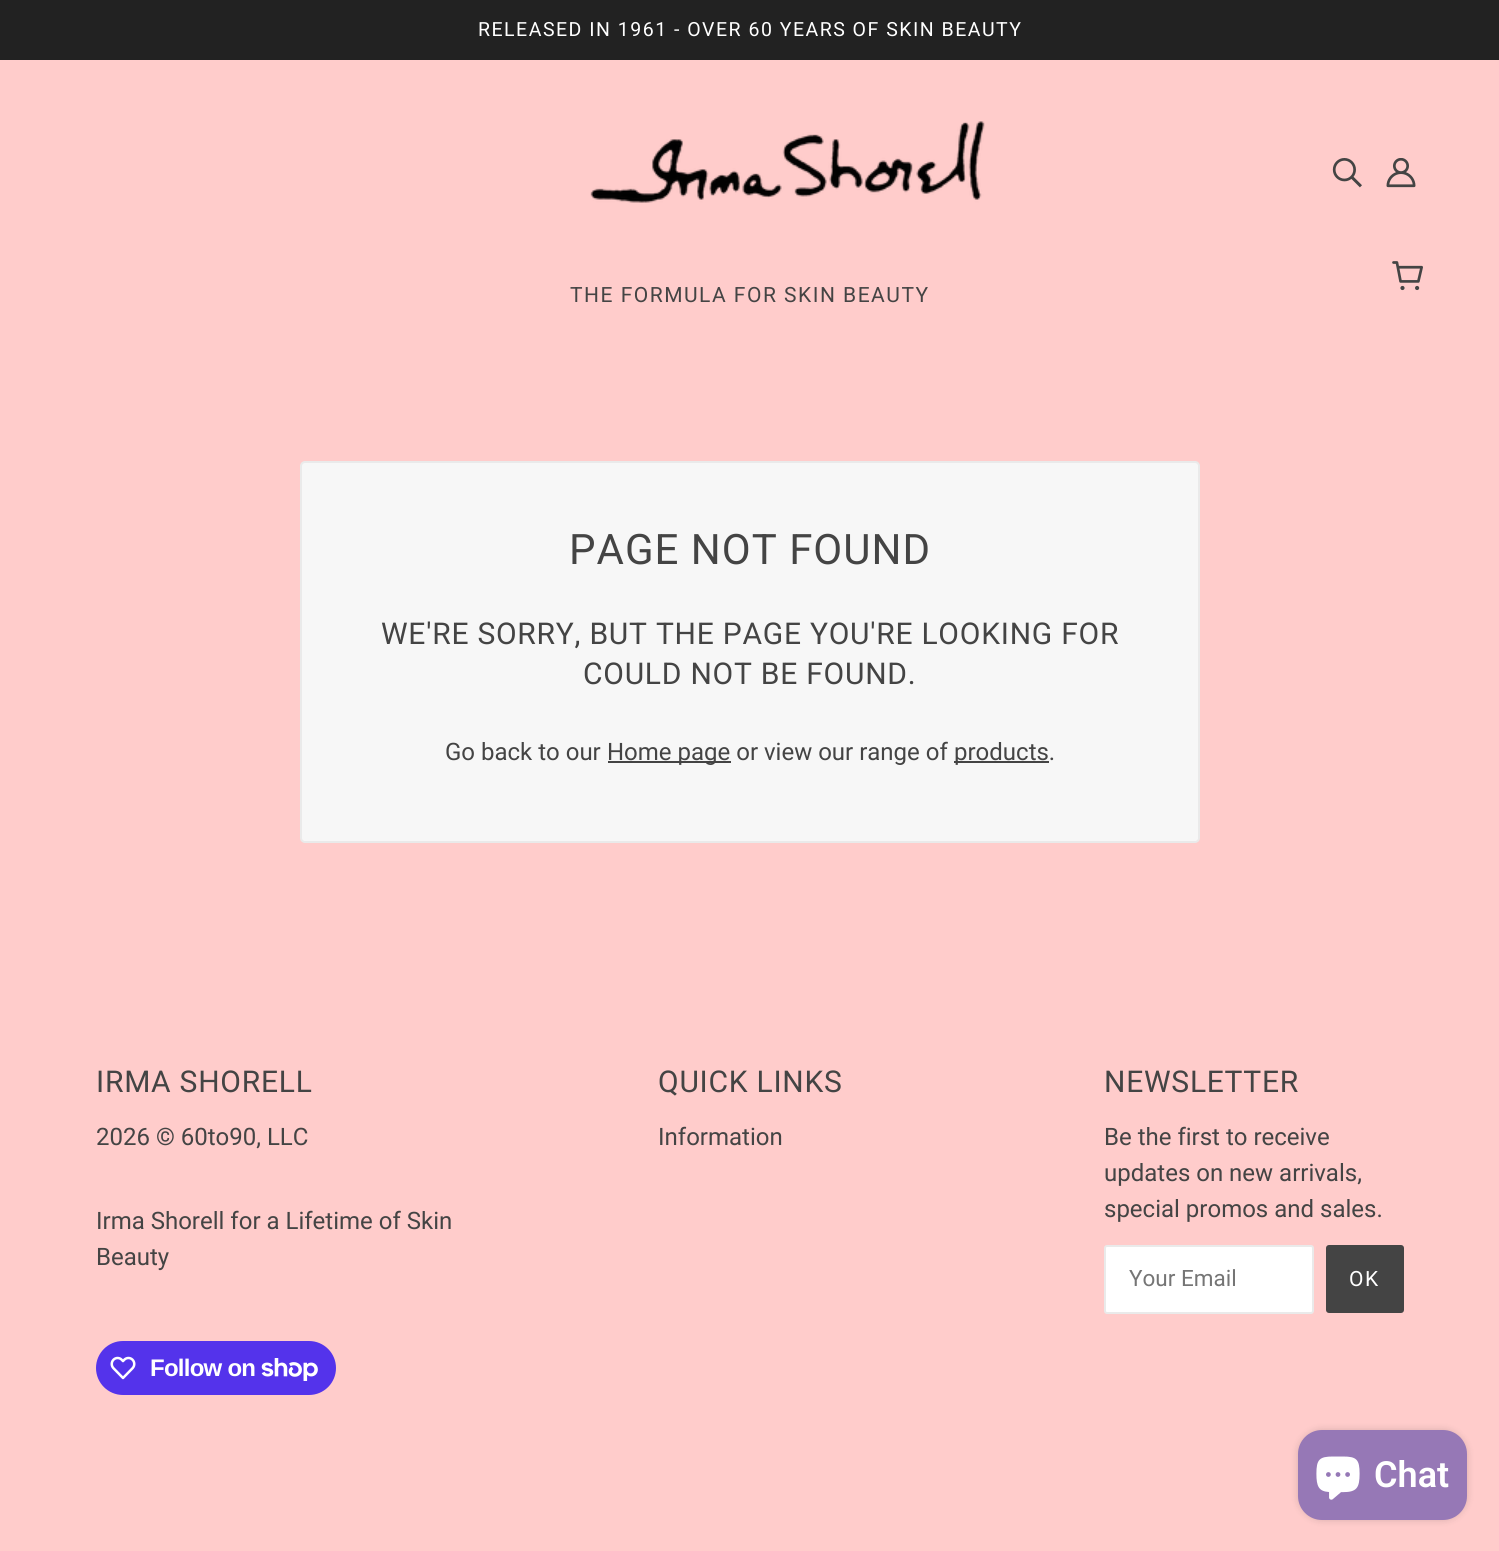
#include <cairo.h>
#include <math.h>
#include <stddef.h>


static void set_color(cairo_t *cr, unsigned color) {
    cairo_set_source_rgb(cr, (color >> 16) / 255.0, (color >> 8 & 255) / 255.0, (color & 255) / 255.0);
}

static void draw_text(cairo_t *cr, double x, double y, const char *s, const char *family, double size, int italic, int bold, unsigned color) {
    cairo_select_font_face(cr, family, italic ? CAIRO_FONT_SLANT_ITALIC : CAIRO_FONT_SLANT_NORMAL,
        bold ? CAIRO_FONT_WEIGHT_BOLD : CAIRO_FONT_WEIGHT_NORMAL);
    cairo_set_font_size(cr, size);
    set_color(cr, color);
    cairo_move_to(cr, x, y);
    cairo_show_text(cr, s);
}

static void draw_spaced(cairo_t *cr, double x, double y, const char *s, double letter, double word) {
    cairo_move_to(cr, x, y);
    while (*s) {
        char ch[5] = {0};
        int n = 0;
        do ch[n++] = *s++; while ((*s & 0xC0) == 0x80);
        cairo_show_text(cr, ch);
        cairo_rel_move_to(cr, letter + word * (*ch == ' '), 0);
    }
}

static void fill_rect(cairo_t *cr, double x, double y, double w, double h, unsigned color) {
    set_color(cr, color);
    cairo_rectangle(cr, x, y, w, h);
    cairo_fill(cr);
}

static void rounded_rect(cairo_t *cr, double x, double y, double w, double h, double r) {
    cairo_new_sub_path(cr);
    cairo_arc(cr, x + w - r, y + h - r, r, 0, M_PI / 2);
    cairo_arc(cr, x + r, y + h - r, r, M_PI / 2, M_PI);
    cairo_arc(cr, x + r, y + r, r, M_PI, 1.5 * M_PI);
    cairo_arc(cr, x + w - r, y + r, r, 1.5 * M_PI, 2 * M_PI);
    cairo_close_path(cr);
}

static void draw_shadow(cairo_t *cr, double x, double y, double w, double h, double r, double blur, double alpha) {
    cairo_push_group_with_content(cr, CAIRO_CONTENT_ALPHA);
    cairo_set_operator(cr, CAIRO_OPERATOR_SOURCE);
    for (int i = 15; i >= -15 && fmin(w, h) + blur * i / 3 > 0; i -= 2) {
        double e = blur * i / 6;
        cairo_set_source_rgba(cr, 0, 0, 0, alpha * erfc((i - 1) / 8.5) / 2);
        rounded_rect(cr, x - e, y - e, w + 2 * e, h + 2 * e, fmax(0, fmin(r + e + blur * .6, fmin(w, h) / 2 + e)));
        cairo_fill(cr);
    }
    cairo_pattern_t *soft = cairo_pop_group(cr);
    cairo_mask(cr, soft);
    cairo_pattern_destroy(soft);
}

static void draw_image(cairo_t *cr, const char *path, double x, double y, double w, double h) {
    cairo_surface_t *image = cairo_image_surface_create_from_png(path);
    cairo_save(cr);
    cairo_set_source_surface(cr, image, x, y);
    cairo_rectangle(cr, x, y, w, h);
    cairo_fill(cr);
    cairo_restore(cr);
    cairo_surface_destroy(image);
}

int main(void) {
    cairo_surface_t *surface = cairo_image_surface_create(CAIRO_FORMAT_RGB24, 1499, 1551);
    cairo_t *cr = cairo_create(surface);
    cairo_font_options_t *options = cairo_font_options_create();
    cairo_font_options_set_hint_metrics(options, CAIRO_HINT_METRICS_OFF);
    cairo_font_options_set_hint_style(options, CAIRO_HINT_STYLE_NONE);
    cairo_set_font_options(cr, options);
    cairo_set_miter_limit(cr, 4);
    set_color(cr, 0xFFCCCB);
    cairo_paint(cr);
    fill_rect(cr, 0, 0, 1499, 60, 0x222222);
    cairo_select_font_face(cr, "Roboto", CAIRO_FONT_SLANT_NORMAL, CAIRO_FONT_WEIGHT_NORMAL);
    cairo_set_font_size(cr, 19.5);
    set_color(cr, 0xFFFFFF);
    draw_spaced(cr, 478, 36, "RELEASED IN 1961 - OVER 60 YEARS OF SKIN BEAUTY", 1.5, 0);
    draw_image(cr, "assets/img1.png", 590, 121, 395, 82);
    draw_image(cr, "assets/img2.png", 1332, 158, 30, 30);
    draw_image(cr, "assets/img3.png", 1386, 158, 30, 30);
    draw_image(cr, "assets/img4.png", 1392, 261, 31, 30);
    cairo_set_font_size(cr, 21);
    set_color(cr, 0x444444);
    draw_spaced(cr, 570, 302, "THE FORMULA FOR SKIN BEAUTY", 1.5, 0);
    set_color(cr, 0xF7F7F7);
    rounded_rect(cr, 301, 462, 898, 380, 4);
    cairo_fill_preserve(cr);
    set_color(cr, 0xEAEAEA);
    cairo_stroke(cr);
    cairo_set_font_size(cr, 42);
    set_color(cr, 0x444444);
    draw_spaced(cr, 569, 564, "PAGE NOT FOUND", 1, 0);
    cairo_set_font_size(cr, 30);
    draw_spaced(cr, 381, 644, "WE'RE SORRY, BUT THE PAGE YOU'RE LOOKING FOR", 0.75, 0);
    draw_spaced(cr, 583, 684, "COULD NOT BE FOUND.", 0.75, 0);
    draw_text(cr, 445, 760, "Go back to our", "Roboto", 24, 0, 0, 0x444444);
    fill_rect(cr, 608, 761, 123, 2, 0x444444);
    draw_text(cr, 607, 760, "Home page or view our range of", "Roboto", 24, 0, 0, 0x444444);
    fill_rect(cr, 954, 761, 95, 2, 0x444444);
    draw_text(cr, 954, 760, "products.", "Roboto", 24, 0, 0, 0x444444);
    cairo_set_font_size(cr, 30);
    draw_spaced(cr, 96, 1092, "IRMA SHORELL", 0.75, 0);
    draw_text(cr, 96, 1145, "2026 © 60to90, LLC", "Roboto", 24, 0, 0, 0x444444);
    draw_text(cr, 96, 1229, "Irma Shorell for a Lifetime of Skin", "Roboto", 24, 0, 0, 0x444444);
    draw_text(cr, 96, 1265, "Beauty", "Roboto", 24, 0, 0, 0x444444);
    set_color(cr, 0x5433EB);
    rounded_rect(cr, 96, 1341, 240, 54, 27);
    cairo_fill(cr);
    draw_image(cr, "assets/img5.png", 110, 1356, 26, 24);
    cairo_select_font_face(cr, "Liberation Sans", CAIRO_FONT_SLANT_NORMAL, CAIRO_FONT_WEIGHT_BOLD);
    set_color(cr, 0xFFFFFF);
    draw_spaced(cr, 150, 1376, "Follow on", -0.75, 0);
    draw_image(cr, "assets/img6.png", 261, 1358, 57, 23);
    cairo_select_font_face(cr, "Roboto", CAIRO_FONT_SLANT_NORMAL, CAIRO_FONT_WEIGHT_NORMAL);
    cairo_set_font_size(cr, 30);
    set_color(cr, 0x444444);
    draw_spaced(cr, 658, 1092, "QUICK LINKS", 0.75, 0);
    draw_text(cr, 658, 1145, "Information", "Roboto", 24, 0, 0, 0x444444);
    cairo_set_font_size(cr, 30);
    draw_spaced(cr, 1104, 1092, "NEWSLETTER", 0.75, 0);
    draw_text(cr, 1104, 1145, "Be the first to receive", "Roboto", 24, 0, 0, 0x444444);
    draw_text(cr, 1104, 1181, "updates on new arrivals,", "Roboto", 24, 0, 0, 0x444444);
    draw_text(cr, 1104, 1217, "special promos and sales.", "Roboto", 24, 0, 0, 0x444444);
    set_color(cr, 0xFFFFFF);
    rounded_rect(cr, 1105, 1246, 208, 67, 2);
    cairo_fill_preserve(cr);
    set_color(cr, 0xEAEAEA);
    cairo_stroke(cr);
    draw_text(cr, 1129, 1286, "Your Email", "Roboto", 22.5, 0, 0, 0x757575);
    set_color(cr, 0x444444);
    rounded_rect(cr, 1326, 1245, 78, 68, 3);
    cairo_fill(cr);
    cairo_set_font_size(cr, 21);
    set_color(cr, 0xFFFFFF);
    draw_spaced(cr, 1349, 1286, "OK", 1.5, 0);
    set_color(cr, 0x000000);
    draw_shadow(cr, 1298, 1430, 169, 90, 24, 4, 0.15);
    set_color(cr, 0x9678B6);
    rounded_rect(cr, 1298, 1430, 169, 90, 24);
    cairo_fill(cr);
    draw_image(cr, "assets/img7.png", 1316, 1456, 44, 44);
    draw_text(cr, 1374, 1487, "Chat", "Roboto SemiBold", 36, 0, 0, 0xFFFFFF);
    cairo_surface_write_to_png(surface, "output.png");
    cairo_font_options_destroy(options);
    cairo_destroy(cr);
    cairo_surface_destroy(surface);
    return 0;
}
